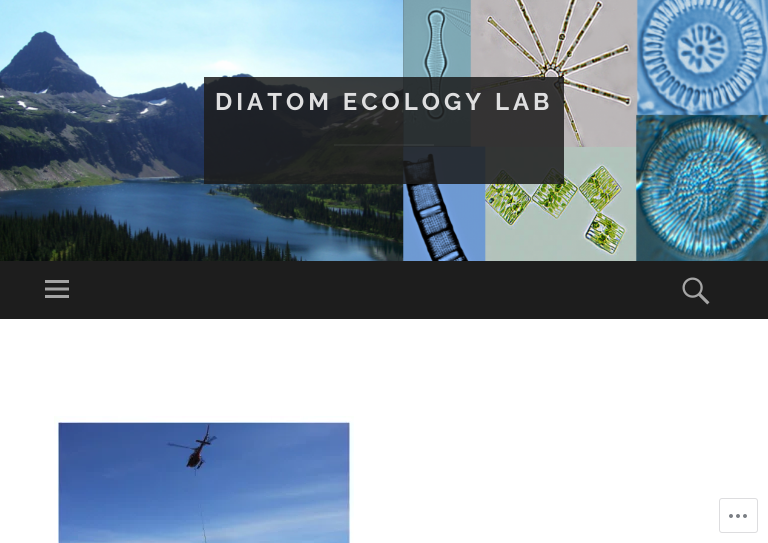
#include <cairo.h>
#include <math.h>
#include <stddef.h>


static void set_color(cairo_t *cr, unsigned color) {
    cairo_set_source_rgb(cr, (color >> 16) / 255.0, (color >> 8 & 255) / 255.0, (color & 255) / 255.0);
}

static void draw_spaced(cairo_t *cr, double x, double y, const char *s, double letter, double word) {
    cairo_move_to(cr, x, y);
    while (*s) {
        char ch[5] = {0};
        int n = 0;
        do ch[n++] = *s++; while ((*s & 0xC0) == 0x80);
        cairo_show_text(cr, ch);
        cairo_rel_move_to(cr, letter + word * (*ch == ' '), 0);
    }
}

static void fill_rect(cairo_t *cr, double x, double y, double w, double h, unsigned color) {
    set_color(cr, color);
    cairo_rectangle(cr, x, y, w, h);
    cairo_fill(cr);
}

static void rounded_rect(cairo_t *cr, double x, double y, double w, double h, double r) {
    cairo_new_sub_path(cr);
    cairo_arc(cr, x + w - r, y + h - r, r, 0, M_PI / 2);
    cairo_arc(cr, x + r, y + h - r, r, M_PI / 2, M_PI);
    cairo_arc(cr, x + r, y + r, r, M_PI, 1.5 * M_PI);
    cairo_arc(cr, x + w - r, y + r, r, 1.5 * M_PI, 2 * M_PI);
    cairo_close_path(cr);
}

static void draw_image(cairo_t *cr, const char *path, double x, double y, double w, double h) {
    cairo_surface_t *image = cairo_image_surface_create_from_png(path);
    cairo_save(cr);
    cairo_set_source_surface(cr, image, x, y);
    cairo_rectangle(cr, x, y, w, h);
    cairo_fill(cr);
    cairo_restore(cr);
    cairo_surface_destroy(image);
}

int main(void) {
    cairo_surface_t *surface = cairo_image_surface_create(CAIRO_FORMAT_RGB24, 768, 543);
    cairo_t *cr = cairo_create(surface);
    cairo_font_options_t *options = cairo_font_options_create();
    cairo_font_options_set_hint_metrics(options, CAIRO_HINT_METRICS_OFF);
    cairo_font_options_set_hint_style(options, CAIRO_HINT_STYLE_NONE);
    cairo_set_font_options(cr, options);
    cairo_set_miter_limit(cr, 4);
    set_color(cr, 0xFFFFFF);
    cairo_paint(cr);
    fill_rect(cr, 403, 0, 68, 147, 0x262626);
    draw_image(cr, "assets/img1.png", 0, 0, 768, 261);
    cairo_set_source_rgba(cr, 0.114, 0.114, 0.114, 0.85);
    cairo_rectangle(cr, 204, 77, 360, 107);
    cairo_fill(cr);
    cairo_select_font_face(cr, "Raleway", CAIRO_FONT_SLANT_NORMAL, CAIRO_FONT_WEIGHT_BOLD);
    cairo_set_font_size(cr, 24);
    set_color(cr, 0xDFDFE0);
    draw_spaced(cr, 215, 110, "DIATOM ECOLOGY LAB", 4, 0);
    cairo_set_source_rgba(cr, 1, 1, 1, 0.05);
    cairo_rectangle(cr, 334, 144, 100, 2);
    cairo_fill(cr);
    fill_rect(cr, 0, 261, 768, 58, 0x1D1D1D);
    draw_image(cr, "assets/img2.png", 45, 280, 24, 18);
    draw_image(cr, "assets/img3.png", 682, 277, 28, 28);
    draw_image(cr, "assets/img4.png", 54, 416, 300, 127);
    rounded_rect(cr, 719.5, 498.5, 38, 34, 2.5);
    set_color(cr, 0xDDDDDF);
    cairo_set_line_width(cr, 1);
    cairo_stroke(cr);
    draw_image(cr, "assets/img5.png", 729, 514, 18, 4);
    cairo_surface_write_to_png(surface, "output.png");
    cairo_font_options_destroy(options);
    cairo_destroy(cr);
    cairo_surface_destroy(surface);
    return 0;
}
